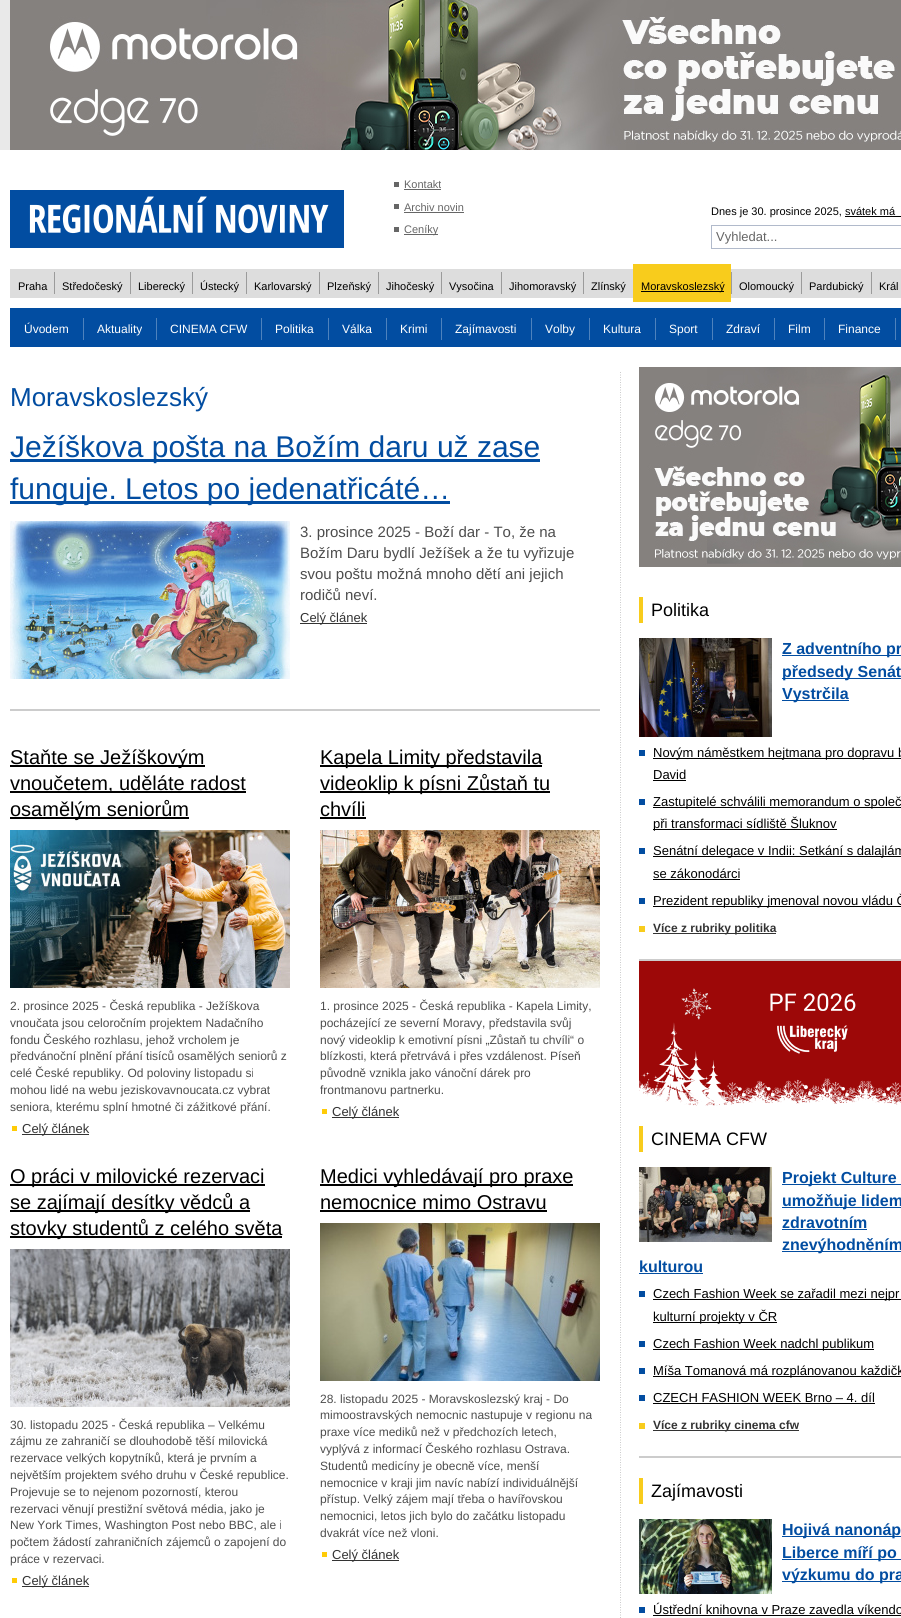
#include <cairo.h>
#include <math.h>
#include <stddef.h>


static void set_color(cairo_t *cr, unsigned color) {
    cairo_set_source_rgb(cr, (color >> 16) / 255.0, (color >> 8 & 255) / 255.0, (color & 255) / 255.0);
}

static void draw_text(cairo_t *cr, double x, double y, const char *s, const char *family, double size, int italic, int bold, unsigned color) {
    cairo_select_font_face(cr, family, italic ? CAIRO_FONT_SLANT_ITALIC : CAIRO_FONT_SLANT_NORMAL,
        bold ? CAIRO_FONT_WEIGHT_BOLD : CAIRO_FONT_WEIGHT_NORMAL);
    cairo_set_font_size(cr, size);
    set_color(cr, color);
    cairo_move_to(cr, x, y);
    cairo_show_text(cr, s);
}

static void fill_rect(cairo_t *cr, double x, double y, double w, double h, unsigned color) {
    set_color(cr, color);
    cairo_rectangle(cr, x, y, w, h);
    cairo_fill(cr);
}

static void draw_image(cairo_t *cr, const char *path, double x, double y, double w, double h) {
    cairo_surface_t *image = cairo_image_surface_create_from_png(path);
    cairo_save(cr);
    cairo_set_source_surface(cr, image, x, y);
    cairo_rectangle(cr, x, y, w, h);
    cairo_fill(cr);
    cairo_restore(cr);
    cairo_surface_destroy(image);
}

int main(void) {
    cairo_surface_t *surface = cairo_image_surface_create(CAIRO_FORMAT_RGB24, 901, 1618);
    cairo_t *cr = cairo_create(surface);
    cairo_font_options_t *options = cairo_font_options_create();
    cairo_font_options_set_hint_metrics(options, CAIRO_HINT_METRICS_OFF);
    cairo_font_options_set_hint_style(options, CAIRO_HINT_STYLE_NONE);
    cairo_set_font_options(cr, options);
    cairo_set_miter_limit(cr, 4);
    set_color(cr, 0xE9E9E9);
    cairo_paint(cr);
    draw_image(cr, "assets/img1.png", 10, 0, 891, 150);
    fill_rect(cr, 0, 150, 901, 1468, 0xFFFFFF);
    draw_image(cr, "assets/img2.png", 10, 190, 334, 58);
    fill_rect(cr, 394, 182, 5, 5, 0x666666);
    draw_text(cr, 404, 188, "Kontakt", "Liberation Sans", 11, 0, 0, 0x666666);
    fill_rect(cr, 404, 189, 37, 1, 0x666666);
    fill_rect(cr, 394, 204, 5, 5, 0x666666);
    draw_text(cr, 404, 211, "Archiv novin", "Liberation Sans", 11, 0, 0, 0x666666);
    fill_rect(cr, 404, 212, 60, 1, 0x666666);
    fill_rect(cr, 394, 227, 5, 5, 0x666666);
    fill_rect(cr, 404, 234, 34, 1, 0x666666);
    draw_text(cr, 404, 233, "Ceníky", "Liberation Sans", 11, 0, 0, 0x666666);
    draw_text(cr, 711, 215, "Dnes je 30. prosince 2025, svátek má", "Liberation Sans", 11, 0, 0, 0x000000);
    fill_rect(cr, 845, 216, 56, 1, 0x000000);
    cairo_rectangle(cr, 711.5, 225.5, 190, 23);
    set_color(cr, 0xB1BACB);
    cairo_set_line_width(cr, 1);
    cairo_stroke(cr);
    draw_text(cr, 716, 241, "Vyhledat...", "Liberation Sans", 13, 0, 0, 0x666666);
    fill_rect(cr, 10, 269, 891, 29, 0xDDDDDD);
    draw_text(cr, 18, 290, "Praha", "Liberation Sans", 11, 0, 0, 0x000000);
    fill_rect(cr, 54, 272, 1, 22, 0x9B9B9B);
    draw_text(cr, 62, 290, "Středočeský", "Liberation Sans", 11, 0, 0, 0x000000);
    fill_rect(cr, 130, 272, 1, 22, 0x9B9B9B);
    draw_text(cr, 138, 290, "Liberecký", "Liberation Sans", 11, 0, 0, 0x000000);
    fill_rect(cr, 192, 272, 1, 22, 0x9B9B9B);
    draw_text(cr, 200, 290, "Ústecký", "Liberation Sans", 11, 0, 0, 0x000000);
    fill_rect(cr, 246, 272, 1, 22, 0x9B9B9B);
    draw_text(cr, 254, 290, "Karlovarský", "Liberation Sans", 11, 0, 0, 0x000000);
    fill_rect(cr, 319, 272, 1, 22, 0x9B9B9B);
    draw_text(cr, 327, 290, "Plzeňský", "Liberation Sans", 11, 0, 0, 0x000000);
    fill_rect(cr, 378, 272, 1, 22, 0x9B9B9B);
    draw_text(cr, 386, 290, "Jihočeský", "Liberation Sans", 11, 0, 0, 0x000000);
    fill_rect(cr, 441, 272, 1, 22, 0x9B9B9B);
    draw_text(cr, 449, 290, "Vysočina", "Liberation Sans", 11, 0, 0, 0x000000);
    fill_rect(cr, 501, 272, 1, 22, 0x9B9B9B);
    draw_text(cr, 509, 290, "Jihomoravský", "Liberation Sans", 11, 0, 0, 0x000000);
    fill_rect(cr, 583, 272, 1, 22, 0x9B9B9B);
    draw_text(cr, 591, 290, "Zlínský", "Liberation Sans", 11, 0, 0, 0x000000);
    fill_rect(cr, 633, 264, 98, 38, 0xF8CC1C);
    fill_rect(cr, 641, 291, 83, 1, 0x000000);
    draw_text(cr, 641, 290, "Moravskoslezský", "Liberation Sans", 11, 0, 0, 0x000000);
    fill_rect(cr, 731, 272, 1, 22, 0x9B9B9B);
    draw_text(cr, 739, 290, "Olomoucký", "Liberation Sans", 11, 0, 0, 0x000000);
    fill_rect(cr, 801, 272, 1, 22, 0x9B9B9B);
    draw_text(cr, 809, 290, "Pardubický", "Liberation Sans", 11, 0, 0, 0x000000);
    fill_rect(cr, 871, 272, 1, 22, 0x9B9B9B);
    draw_text(cr, 879, 290, "Král", "Liberation Sans", 11, 0, 0, 0x000000);
    fill_rect(cr, 10, 308, 891, 39, 0x024DA1);
    draw_text(cr, 24, 333, "Úvodem", "Liberation Sans", 12, 0, 0, 0xFFFFFF);
    fill_rect(cr, 83, 318, 1, 22, 0x4E82BD);
    draw_text(cr, 97, 333, "Aktuality", "Liberation Sans", 12, 0, 0, 0xFFFFFF);
    fill_rect(cr, 156, 318, 1, 22, 0x4E82BD);
    draw_text(cr, 170, 333, "CINEMA CFW", "Liberation Sans", 12, 0, 0, 0xFFFFFF);
    fill_rect(cr, 261, 318, 1, 22, 0x4E82BD);
    draw_text(cr, 275, 333, "Politika", "Liberation Sans", 12, 0, 0, 0xFFFFFF);
    fill_rect(cr, 328, 318, 1, 22, 0x4E82BD);
    draw_text(cr, 342, 333, "Válka", "Liberation Sans", 12, 0, 0, 0xFFFFFF);
    fill_rect(cr, 386, 318, 1, 22, 0x4E82BD);
    draw_text(cr, 400, 333, "Krimi", "Liberation Sans", 12, 0, 0, 0xFFFFFF);
    fill_rect(cr, 441, 318, 1, 22, 0x4E82BD);
    draw_text(cr, 455, 333, "Zajímavosti", "Liberation Sans", 12, 0, 0, 0xFFFFFF);
    fill_rect(cr, 531, 318, 1, 22, 0x4E82BD);
    draw_text(cr, 545, 333, "Volby", "Liberation Sans", 12, 0, 0, 0xFFFFFF);
    fill_rect(cr, 589, 318, 1, 22, 0x4E82BD);
    draw_text(cr, 603, 333, "Kultura", "Liberation Sans", 12, 0, 0, 0xFFFFFF);
    fill_rect(cr, 655, 318, 1, 22, 0x4E82BD);
    draw_text(cr, 669, 333, "Sport", "Liberation Sans", 12, 0, 0, 0xFFFFFF);
    fill_rect(cr, 712, 318, 1, 22, 0x4E82BD);
    draw_text(cr, 726, 333, "Zdraví", "Liberation Sans", 12, 0, 0, 0xFFFFFF);
    fill_rect(cr, 774, 318, 1, 22, 0x4E82BD);
    draw_text(cr, 788, 333, "Film", "Liberation Sans", 12, 0, 0, 0xFFFFFF);
    fill_rect(cr, 824, 318, 1, 22, 0x4E82BD);
    draw_text(cr, 838, 333, "Finance", "Liberation Sans", 12, 0, 0, 0xFFFFFF);
    fill_rect(cr, 895, 318, 1, 22, 0x4E82BD);
    draw_image(cr, "assets/img3.png", 620, 372, 1, 1246);
    draw_text(cr, 10, 406, "Moravskoslezský", "Liberation Sans", 26, 0, 0, 0x024DA1);
    fill_rect(cr, 10, 459, 530, 3, 0x024DA1);
    draw_text(cr, 10, 457, "Ježíškova pošta na Božím daru už zase", "Liberation Sans", 30, 0, 0, 0x024DA1);
    fill_rect(cr, 10, 501, 440, 3, 0x024DA1);
    draw_text(cr, 10, 499, "funguje. Letos po jedenatřicáté…", "Liberation Sans", 30, 0, 0, 0x024DA1);
    draw_image(cr, "assets/img4.png", 10, 521, 280, 158);
    draw_text(cr, 300, 537, "3. prosince 2025 - Boží dar - To, že na", "Liberation Sans", 15, 0, 0, 0x4D4D4D);
    draw_text(cr, 300, 558, "Božím Daru bydlí Ježíšek a že tu vyřizuje", "Liberation Sans", 15, 0, 0, 0x4D4D4D);
    draw_text(cr, 300, 579, "svou poštu možná mnoho dětí ani jejich", "Liberation Sans", 15, 0, 0, 0x4D4D4D);
    draw_text(cr, 300, 600, "rodičů neví.", "Liberation Sans", 15, 0, 0, 0x4D4D4D);
    fill_rect(cr, 300, 623, 67, 1, 0x333333);
    draw_text(cr, 300, 622, "Celý článek", "Liberation Sans", 13, 0, 0, 0x333333);
    fill_rect(cr, 10, 709, 590, 2, 0xCCCCCC);
    fill_rect(cr, 10, 765, 195, 2, 0x000000);
    draw_text(cr, 10, 764, "Staňte se Ježíškovým", "Liberation Sans", 20, 0, 0, 0x000000);
    fill_rect(cr, 10, 791, 236, 2, 0x000000);
    draw_text(cr, 10, 790, "vnoučetem, uděláte radost", "Liberation Sans", 20, 0, 0, 0x000000);
    fill_rect(cr, 10, 817, 179, 2, 0x000000);
    draw_text(cr, 10, 816, "osamělým seniorům", "Liberation Sans", 20, 0, 0, 0x000000);
    draw_image(cr, "assets/img5.png", 10, 830, 280, 158);
    draw_text(cr, 10, 1010, "2. prosince 2025 - Česká republika - Ježíškova", "Liberation Sans", 12, 0, 0, 0x4D4D4D);
    draw_text(cr, 10, 1027, "vnoučata jsou celoročním projektem Nadačního", "Liberation Sans", 12, 0, 0, 0x4D4D4D);
    draw_text(cr, 10, 1044, "fondu Českého rozhlasu, jehož vrcholem je", "Liberation Sans", 12, 0, 0, 0x4D4D4D);
    draw_text(cr, 10, 1060, "předvánoční plnění přání tisíců osamělých seniorů z", "Liberation Sans", 12, 0, 0, 0x4D4D4D);
    draw_text(cr, 10, 1077, "celé České republiky. Od poloviny listopadu si", "Liberation Sans", 12, 0, 0, 0x4D4D4D);
    draw_text(cr, 10, 1094, "mohou lidé na webu jeziskovavnoucata.cz vybrat", "Liberation Sans", 12, 0, 0, 0x4D4D4D);
    draw_text(cr, 10, 1111, "seniora, kterému splní hmotné či zážitkové přání.", "Liberation Sans", 12, 0, 0, 0x4D4D4D);
    fill_rect(cr, 12, 1126, 5, 5, 0xFFCB06);
    fill_rect(cr, 22, 1134, 67, 1, 0x333333);
    draw_text(cr, 22, 1133, "Celý článek", "Liberation Sans", 13, 0, 0, 0x333333);
    fill_rect(cr, 320, 765, 222, 2, 0x000000);
    draw_text(cr, 320, 764, "Kapela Limity představila", "Liberation Sans", 20, 0, 0, 0x000000);
    fill_rect(cr, 320, 791, 230, 2, 0x000000);
    draw_text(cr, 320, 790, "videoklip k písni Zůstaň tu", "Liberation Sans", 20, 0, 0, 0x000000);
    draw_text(cr, 320, 816, "chvíli", "Liberation Sans", 20, 0, 0, 0x000000);
    fill_rect(cr, 320, 817, 46, 2, 0x000000);
    draw_image(cr, "assets/img6.png", 320, 830, 280, 158);
    draw_text(cr, 320, 1010, "1. prosince 2025 - Česká republika - Kapela Limity,", "Liberation Sans", 12, 0, 0, 0x4D4D4D);
    draw_text(cr, 320, 1027, "pocházející ze severní Moravy, představila svůj", "Liberation Sans", 12, 0, 0, 0x4D4D4D);
    draw_text(cr, 320, 1044, "nový videoklip k emotivní písni „Zůstaň tu chvíli“ o", "Liberation Sans", 12, 0, 0, 0x4D4D4D);
    draw_text(cr, 320, 1060, "blízkosti, která přetrvává i přes vzdálenost. Píseň", "Liberation Sans", 12, 0, 0, 0x4D4D4D);
    draw_text(cr, 320, 1077, "původně vznikla jako vánoční dárek pro", "Liberation Sans", 12, 0, 0, 0x4D4D4D);
    draw_text(cr, 320, 1094, "frontmanovu partnerku.", "Liberation Sans", 12, 0, 0, 0x4D4D4D);
    fill_rect(cr, 322, 1109, 5, 5, 0xFFCB06);
    fill_rect(cr, 332, 1117, 67, 1, 0x333333);
    draw_text(cr, 332, 1116, "Celý článek", "Liberation Sans", 13, 0, 0, 0x333333);
    fill_rect(cr, 10, 1184, 255, 2, 0x000000);
    draw_text(cr, 10, 1183, "O práci v milovické rezervaci", "Liberation Sans", 20, 0, 0, 0x000000);
    fill_rect(cr, 10, 1210, 240, 2, 0x000000);
    draw_text(cr, 10, 1209, "se zajímají desítky vědců a", "Liberation Sans", 20, 0, 0, 0x000000);
    fill_rect(cr, 10, 1236, 272, 2, 0x000000);
    draw_text(cr, 10, 1235, "stovky studentů z celého světa", "Liberation Sans", 20, 0, 0, 0x000000);
    draw_image(cr, "assets/img7.png", 10, 1249, 280, 158);
    draw_text(cr, 10, 1429, "30. listopadu 2025 - Česká republika – Velkému", "Liberation Sans", 12, 0, 0, 0x4D4D4D);
    draw_text(cr, 10, 1445, "zájmu ze zahraničí se dlouhodobě těší milovická", "Liberation Sans", 12, 0, 0, 0x4D4D4D);
    draw_text(cr, 10, 1462, "rezervace velkých kopytníků, která je prvním a", "Liberation Sans", 12, 0, 0, 0x4D4D4D);
    draw_text(cr, 10, 1479, "největším projektem svého druhu v České republice.", "Liberation Sans", 12, 0, 0, 0x4D4D4D);
    draw_text(cr, 10, 1496, "Projevuje se to nejenom pozorností, kterou", "Liberation Sans", 12, 0, 0, 0x4D4D4D);
    draw_text(cr, 10, 1513, "rezervaci věnují prestižní světová média, jako je", "Liberation Sans", 12, 0, 0, 0x4D4D4D);
    draw_text(cr, 10, 1529, "New York Times, Washington Post nebo BBC, ale i", "Liberation Sans", 12, 0, 0, 0x4D4D4D);
    draw_text(cr, 10, 1546, "počtem žádostí zahraničních zájemců o zapojení do", "Liberation Sans", 12, 0, 0, 0x4D4D4D);
    draw_text(cr, 10, 1563, "práce v rezervaci.", "Liberation Sans", 12, 0, 0, 0x4D4D4D);
    fill_rect(cr, 12, 1578, 5, 5, 0xFFCB06);
    fill_rect(cr, 22, 1586, 67, 1, 0x333333);
    draw_text(cr, 22, 1585, "Celý článek", "Liberation Sans", 13, 0, 0, 0x333333);
    fill_rect(cr, 320, 1184, 253, 2, 0x000000);
    draw_text(cr, 320, 1183, "Medici vyhledávají pro praxe", "Liberation Sans", 20, 0, 0, 0x000000);
    draw_text(cr, 320, 1209, "nemocnice mimo Ostravu", "Liberation Sans", 20, 0, 0, 0x000000);
    fill_rect(cr, 320, 1210, 227, 2, 0x000000);
    draw_image(cr, "assets/img8.png", 320, 1223, 280, 158);
    draw_text(cr, 320, 1403, "28. listopadu 2025 - Moravskoslezský kraj - Do", "Liberation Sans", 12, 0, 0, 0x4D4D4D);
    draw_text(cr, 320, 1419, "mimoostravských nemocnic nastupuje v regionu na", "Liberation Sans", 12, 0, 0, 0x4D4D4D);
    draw_text(cr, 320, 1436, "praxe více mediků než v předchozích letech,", "Liberation Sans", 12, 0, 0, 0x4D4D4D);
    draw_text(cr, 320, 1453, "vyplývá z informací Českého rozhlasu Ostrava.", "Liberation Sans", 12, 0, 0, 0x4D4D4D);
    draw_text(cr, 320, 1470, "Studentů medicíny je obecně více, menší", "Liberation Sans", 12, 0, 0, 0x4D4D4D);
    draw_text(cr, 320, 1487, "nemocnice v kraji jim navíc nabízí individuálnější", "Liberation Sans", 12, 0, 0, 0x4D4D4D);
    draw_text(cr, 320, 1503, "přístup. Velký zájem mají třeba o havířovskou", "Liberation Sans", 12, 0, 0, 0x4D4D4D);
    draw_text(cr, 320, 1520, "nemocnici, letos jich bylo do začátku listopadu", "Liberation Sans", 12, 0, 0, 0x4D4D4D);
    draw_text(cr, 320, 1537, "dvakrát více než vloni.", "Liberation Sans", 12, 0, 0, 0x4D4D4D);
    fill_rect(cr, 322, 1552, 5, 5, 0xFFCB06);
    fill_rect(cr, 332, 1560, 67, 1, 0x333333);
    draw_text(cr, 332, 1559, "Celý článek", "Liberation Sans", 13, 0, 0, 0x333333);
    draw_image(cr, "assets/img9.png", 639, 367, 262, 200);
    fill_rect(cr, 639, 597, 4, 26, 0xF8CC1C);
    draw_text(cr, 651, 616, "Politika", "Liberation Sans", 18, 0, 0, 0x000000);
    draw_image(cr, "assets/img10.png", 639, 638, 133, 99);
    fill_rect(cr, 782, 655, 119, 1, 0x024DA1);
    draw_text(cr, 782, 654, "Z adventního pr", "Liberation Sans", 16, 0, 1, 0x024DA1);
    fill_rect(cr, 782, 678, 119, 1, 0x024DA1);
    draw_text(cr, 782, 677, "předsedy Senát", "Liberation Sans", 16, 0, 1, 0x024DA1);
    fill_rect(cr, 782, 700, 67, 1, 0x024DA1);
    draw_text(cr, 782, 699, "Vystrčila", "Liberation Sans", 16, 0, 1, 0x024DA1);
    fill_rect(cr, 639, 750, 6, 6, 0x024DA1);
    fill_rect(cr, 653, 758, 248, 1, 0x000000);
    draw_text(cr, 653, 757, "Novým náměstkem hejtmana pro dopravu b", "Liberation Sans", 13, 0, 0, 0x000000);
    draw_text(cr, 653, 779, "David", "Liberation Sans", 13, 0, 0, 0x000000);
    fill_rect(cr, 653, 780, 33, 1, 0x000000);
    fill_rect(cr, 639, 799, 6, 6, 0x024DA1);
    fill_rect(cr, 653, 807, 248, 1, 0x000000);
    draw_text(cr, 653, 806, "Zastupitelé schválili memorandum o společ", "Liberation Sans", 13, 0, 0, 0x000000);
    fill_rect(cr, 653, 829, 184, 1, 0x000000);
    draw_text(cr, 653, 828, "při transformaci sídliště Šluknov", "Liberation Sans", 13, 0, 0, 0x000000);
    fill_rect(cr, 639, 848, 6, 6, 0x024DA1);
    fill_rect(cr, 653, 856, 248, 1, 0x000000);
    draw_text(cr, 653, 855, "Senátní delegace v Indii: Setkání s dalajlám", "Liberation Sans", 13, 0, 0, 0x000000);
    draw_text(cr, 653, 878, "se zákonodárci", "Liberation Sans", 13, 0, 0, 0x000000);
    fill_rect(cr, 653, 879, 87, 1, 0x000000);
    fill_rect(cr, 639, 898, 6, 6, 0x024DA1);
    fill_rect(cr, 653, 906, 248, 1, 0x000000);
    draw_text(cr, 653, 905, "Prezident republiky jmenoval novou vládu Č", "Liberation Sans", 13, 0, 0, 0x000000);
    fill_rect(cr, 639, 926, 6, 6, 0xF8CC1C);
    fill_rect(cr, 639, 959, 262, 2, 0xCCCCCC);
    fill_rect(cr, 653, 933, 123, 1, 0x333333);
    draw_text(cr, 653, 932, "Více z rubriky politika", "Liberation Sans", 12, 0, 1, 0x333333);
    draw_image(cr, "assets/img11.png", 639, 961, 262, 145);
    fill_rect(cr, 639, 1126, 4, 26, 0xF8CC1C);
    draw_text(cr, 651, 1145, "CINEMA CFW", "Liberation Sans", 18, 0, 0, 0x000000);
    draw_image(cr, "assets/img12.png", 639, 1167, 133, 75);
    fill_rect(cr, 782, 1184, 119, 1, 0x024DA1);
    draw_text(cr, 782, 1183, "Projekt Culture", "Liberation Sans", 16, 0, 1, 0x024DA1);
    fill_rect(cr, 782, 1207, 119, 1, 0x024DA1);
    draw_text(cr, 782, 1206, "umožňuje lidem", "Liberation Sans", 16, 0, 1, 0x024DA1);
    draw_text(cr, 782, 1228, "zdravotním", "Liberation Sans", 16, 0, 1, 0x024DA1);
    fill_rect(cr, 782, 1229, 85, 1, 0x024DA1);
    fill_rect(cr, 782, 1251, 119, 1, 0x024DA1);
    draw_text(cr, 782, 1250, "znevýhodněním", "Liberation Sans", 16, 0, 1, 0x024DA1);
    draw_text(cr, 639, 1272, "kulturou", "Liberation Sans", 16, 0, 1, 0x024DA1);
    fill_rect(cr, 639, 1273, 64, 1, 0x024DA1);
    fill_rect(cr, 639, 1291, 6, 6, 0x024DA1);
    fill_rect(cr, 653, 1299, 248, 1, 0x000000);
    draw_text(cr, 653, 1298, "Czech Fashion Week se zařadil mezi nejpr", "Liberation Sans", 13, 0, 0, 0x000000);
    fill_rect(cr, 653, 1322, 124, 1, 0x000000);
    draw_text(cr, 653, 1321, "kulturní projekty v ČR", "Liberation Sans", 13, 0, 0, 0x000000);
    fill_rect(cr, 639, 1341, 6, 6, 0x024DA1);
    fill_rect(cr, 653, 1349, 221, 1, 0x000000);
    draw_text(cr, 653, 1348, "Czech Fashion Week nadchl publikum", "Liberation Sans", 13, 0, 0, 0x000000);
    fill_rect(cr, 639, 1368, 6, 6, 0x024DA1);
    fill_rect(cr, 653, 1376, 248, 1, 0x000000);
    draw_text(cr, 653, 1375, "Míša Tomanová má rozplánovanou každičk", "Liberation Sans", 13, 0, 0, 0x000000);
    fill_rect(cr, 639, 1395, 6, 6, 0x024DA1);
    draw_text(cr, 653, 1402, "CZECH FASHION WEEK Brno – 4. díl", "Liberation Sans", 13, 0, 0, 0x000000);
    fill_rect(cr, 653, 1403, 222, 1, 0x000000);
    fill_rect(cr, 639, 1423, 6, 6, 0xF8CC1C);
    fill_rect(cr, 639, 1456, 262, 2, 0xCCCCCC);
    fill_rect(cr, 653, 1430, 146, 1, 0x333333);
    draw_text(cr, 653, 1429, "Více z rubriky cinema cfw", "Liberation Sans", 12, 0, 1, 0x333333);
    fill_rect(cr, 639, 1478, 4, 26, 0xF8CC1C);
    draw_text(cr, 651, 1497, "Zajímavosti", "Liberation Sans", 18, 0, 0, 0x000000);
    draw_image(cr, "assets/img13.png", 639, 1519, 133, 75);
    fill_rect(cr, 782, 1536, 119, 1, 0x024DA1);
    draw_text(cr, 782, 1535, "Hojivá nanonáp", "Liberation Sans", 16, 0, 1, 0x024DA1);
    fill_rect(cr, 782, 1559, 119, 1, 0x024DA1);
    draw_text(cr, 782, 1558, "Liberce míří po", "Liberation Sans", 16, 0, 1, 0x024DA1);
    fill_rect(cr, 782, 1581, 119, 1, 0x024DA1);
    draw_text(cr, 782, 1580, "výzkumu do pra", "Liberation Sans", 16, 0, 1, 0x024DA1);
    fill_rect(cr, 639, 1607, 6, 6, 0x024DA1);
    draw_text(cr, 653, 1614, "Ústřední knihovna v Praze zavedla víkendo", "Liberation Sans", 13, 0, 0, 0x000000);
    fill_rect(cr, 653, 1615, 248, 1, 0x000000);
    cairo_surface_write_to_png(surface, "output.png");
    cairo_font_options_destroy(options);
    cairo_destroy(cr);
    cairo_surface_destroy(surface);
    return 0;
}
